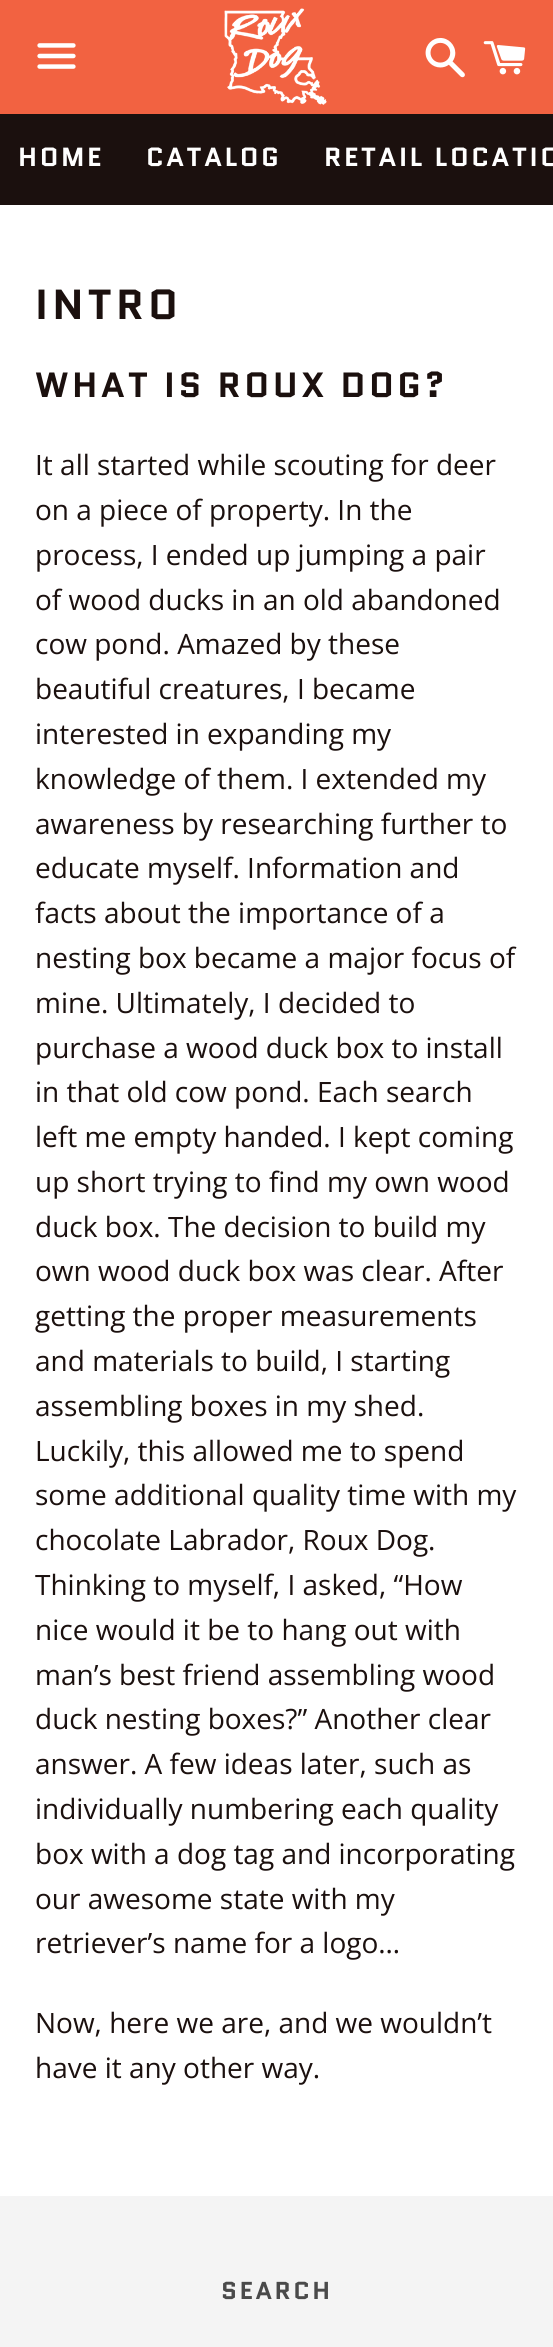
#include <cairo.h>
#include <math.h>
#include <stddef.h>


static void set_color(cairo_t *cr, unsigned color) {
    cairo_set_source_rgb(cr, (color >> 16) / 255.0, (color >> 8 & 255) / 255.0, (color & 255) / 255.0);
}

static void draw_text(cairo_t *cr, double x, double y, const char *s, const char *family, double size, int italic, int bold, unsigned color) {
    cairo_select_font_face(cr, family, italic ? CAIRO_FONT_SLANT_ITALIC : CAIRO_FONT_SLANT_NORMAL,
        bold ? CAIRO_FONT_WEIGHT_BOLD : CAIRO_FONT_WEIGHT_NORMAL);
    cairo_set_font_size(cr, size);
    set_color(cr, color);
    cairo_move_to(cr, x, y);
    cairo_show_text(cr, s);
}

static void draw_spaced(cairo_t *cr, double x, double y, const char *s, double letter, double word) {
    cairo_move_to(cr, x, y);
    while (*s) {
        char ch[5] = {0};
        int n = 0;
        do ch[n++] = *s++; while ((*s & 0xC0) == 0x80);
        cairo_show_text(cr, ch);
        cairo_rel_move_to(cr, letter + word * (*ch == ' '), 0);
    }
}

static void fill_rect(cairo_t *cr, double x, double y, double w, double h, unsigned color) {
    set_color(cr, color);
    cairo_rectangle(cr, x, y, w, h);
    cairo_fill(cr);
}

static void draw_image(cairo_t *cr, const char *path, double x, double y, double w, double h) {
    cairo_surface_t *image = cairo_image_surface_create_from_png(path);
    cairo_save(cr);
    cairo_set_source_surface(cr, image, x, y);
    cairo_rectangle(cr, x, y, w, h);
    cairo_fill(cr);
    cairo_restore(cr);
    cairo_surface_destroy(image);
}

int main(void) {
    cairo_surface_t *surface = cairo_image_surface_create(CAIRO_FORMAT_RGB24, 553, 2347);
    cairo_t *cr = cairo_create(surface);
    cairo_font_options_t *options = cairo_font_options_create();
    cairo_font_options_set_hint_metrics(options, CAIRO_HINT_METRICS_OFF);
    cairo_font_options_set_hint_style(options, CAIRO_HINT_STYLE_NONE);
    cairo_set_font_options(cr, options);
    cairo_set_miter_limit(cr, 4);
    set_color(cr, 0xFFFFFF);
    cairo_paint(cr);
    fill_rect(cr, 0, 0, 553, 114, 0xF26241);
    draw_image(cr, "assets/img1.png", 37, 43, 39, 26);
    draw_image(cr, "assets/img2.png", 224, 8, 103, 97);
    draw_image(cr, "assets/img3.png", 425, 37, 40, 41);
    draw_image(cr, "assets/img4.png", 483, 41, 43, 34);
    fill_rect(cr, 0, 114, 553, 91, 0x1B100E);
    cairo_select_font_face(cr, "Quantico", CAIRO_FONT_SLANT_NORMAL, CAIRO_FONT_WEIGHT_BOLD);
    cairo_set_font_size(cr, 26.25);
    set_color(cr, 0xFFFFFF);
    draw_spaced(cr, 18, 166, "HOME", 2.6, 0);
    draw_spaced(cr, 146, 166, "CATALOG", 2.6, 0);
    draw_spaced(cr, 324, 166, "RETAIL LOCATIO", 2.6, 0);
    cairo_set_font_size(cr, 42);
    set_color(cr, 0x1B100E);
    draw_spaced(cr, 35, 319, "INTRO", 4.25, 0);
    cairo_set_font_size(cr, 35);
    draw_spaced(cr, 35, 397, "WHAT IS ROUX DOG?", 3.5, 0);
    draw_text(cr, 35, 475, "It all started while scouting for deer", "Open Sans", 28, 0, 0, 0x1B100E);
    draw_text(cr, 35, 520, "on a piece of property. In the", "Open Sans", 28, 0, 0, 0x1B100E);
    draw_text(cr, 35, 565, "process, I ended up jumping a pair", "Open Sans", 28, 0, 0, 0x1B100E);
    draw_text(cr, 35, 610, "of wood ducks in an old abandoned", "Open Sans", 28, 0, 0, 0x1B100E);
    draw_text(cr, 35, 654, "cow pond. Amazed by these", "Open Sans", 28, 0, 0, 0x1B100E);
    draw_text(cr, 35, 699, "beautiful creatures, I became", "Open Sans", 28, 0, 0, 0x1B100E);
    draw_text(cr, 35, 744, "interested in expanding my", "Open Sans", 28, 0, 0, 0x1B100E);
    draw_text(cr, 35, 789, "knowledge of them. I extended my", "Open Sans", 28, 0, 0, 0x1B100E);
    draw_text(cr, 35, 834, "awareness by researching further to", "Open Sans", 28, 0, 0, 0x1B100E);
    draw_text(cr, 35, 878, "educate myself. Information and", "Open Sans", 28, 0, 0, 0x1B100E);
    draw_text(cr, 35, 923, "facts about the importance of a", "Open Sans", 28, 0, 0, 0x1B100E);
    draw_text(cr, 35, 968, "nesting box became a major focus of", "Open Sans", 28, 0, 0, 0x1B100E);
    draw_text(cr, 35, 1013, "mine. Ultimately, I decided to", "Open Sans", 28, 0, 0, 0x1B100E);
    draw_text(cr, 35, 1058, "purchase a wood duck box to install", "Open Sans", 28, 0, 0, 0x1B100E);
    draw_text(cr, 35, 1102, "in that old cow pond. Each search", "Open Sans", 28, 0, 0, 0x1B100E);
    draw_text(cr, 35, 1147, "left me empty handed. I kept coming", "Open Sans", 28, 0, 0, 0x1B100E);
    draw_text(cr, 35, 1192, "up short trying to find my own wood", "Open Sans", 28, 0, 0, 0x1B100E);
    draw_text(cr, 35, 1237, "duck box. The decision to build my", "Open Sans", 28, 0, 0, 0x1B100E);
    draw_text(cr, 35, 1281, "own wood duck box was clear. After", "Open Sans", 28, 0, 0, 0x1B100E);
    draw_text(cr, 35, 1326, "getting the proper measurements", "Open Sans", 28, 0, 0, 0x1B100E);
    draw_text(cr, 35, 1371, "and materials to build, I starting", "Open Sans", 28, 0, 0, 0x1B100E);
    draw_text(cr, 35, 1416, "assembling boxes in my shed.", "Open Sans", 28, 0, 0, 0x1B100E);
    draw_text(cr, 35, 1461, "Luckily, this allowed me to spend", "Open Sans", 28, 0, 0, 0x1B100E);
    draw_text(cr, 35, 1505, "some additional quality time with my", "Open Sans", 28, 0, 0, 0x1B100E);
    draw_text(cr, 35, 1550, "chocolate Labrador, Roux Dog.", "Open Sans", 28, 0, 0, 0x1B100E);
    draw_text(cr, 35, 1595, "Thinking to myself, I asked, “How", "Open Sans", 28, 0, 0, 0x1B100E);
    draw_text(cr, 35, 1640, "nice would it be to hang out with", "Open Sans", 28, 0, 0, 0x1B100E);
    draw_text(cr, 35, 1685, "man’s best friend assembling wood", "Open Sans", 28, 0, 0, 0x1B100E);
    draw_text(cr, 35, 1729, "duck nesting boxes?” Another clear", "Open Sans", 28, 0, 0, 0x1B100E);
    draw_text(cr, 35, 1774, "answer. A few ideas later, such as", "Open Sans", 28, 0, 0, 0x1B100E);
    draw_text(cr, 35, 1819, "individually numbering each quality", "Open Sans", 28, 0, 0, 0x1B100E);
    draw_text(cr, 35, 1864, "box with a dog tag and incorporating", "Open Sans", 28, 0, 0, 0x1B100E);
    draw_text(cr, 35, 1909, "our awesome state with my", "Open Sans", 28, 0, 0, 0x1B100E);
    draw_text(cr, 35, 1953, "retriever’s name for a logo…", "Open Sans", 28, 0, 0, 0x1B100E);
    draw_text(cr, 35, 2033, "Now, here we are, and we wouldn’t", "Open Sans", 28, 0, 0, 0x1B100E);
    draw_text(cr, 35, 2078, "have it any other way.", "Open Sans", 28, 0, 0, 0x1B100E);
    fill_rect(cr, 0, 2196, 553, 151, 0xF4F4F4);
    cairo_select_font_face(cr, "Quantico", CAIRO_FONT_SLANT_NORMAL, CAIRO_FONT_WEIGHT_BOLD);
    cairo_set_font_size(cr, 24.5);
    set_color(cr, 0x4A4A4A);
    draw_spaced(cr, 221, 2299, "SEARCH", 2.5, 0);
    cairo_surface_write_to_png(surface, "output.png");
    cairo_font_options_destroy(options);
    cairo_destroy(cr);
    cairo_surface_destroy(surface);
    return 0;
}
